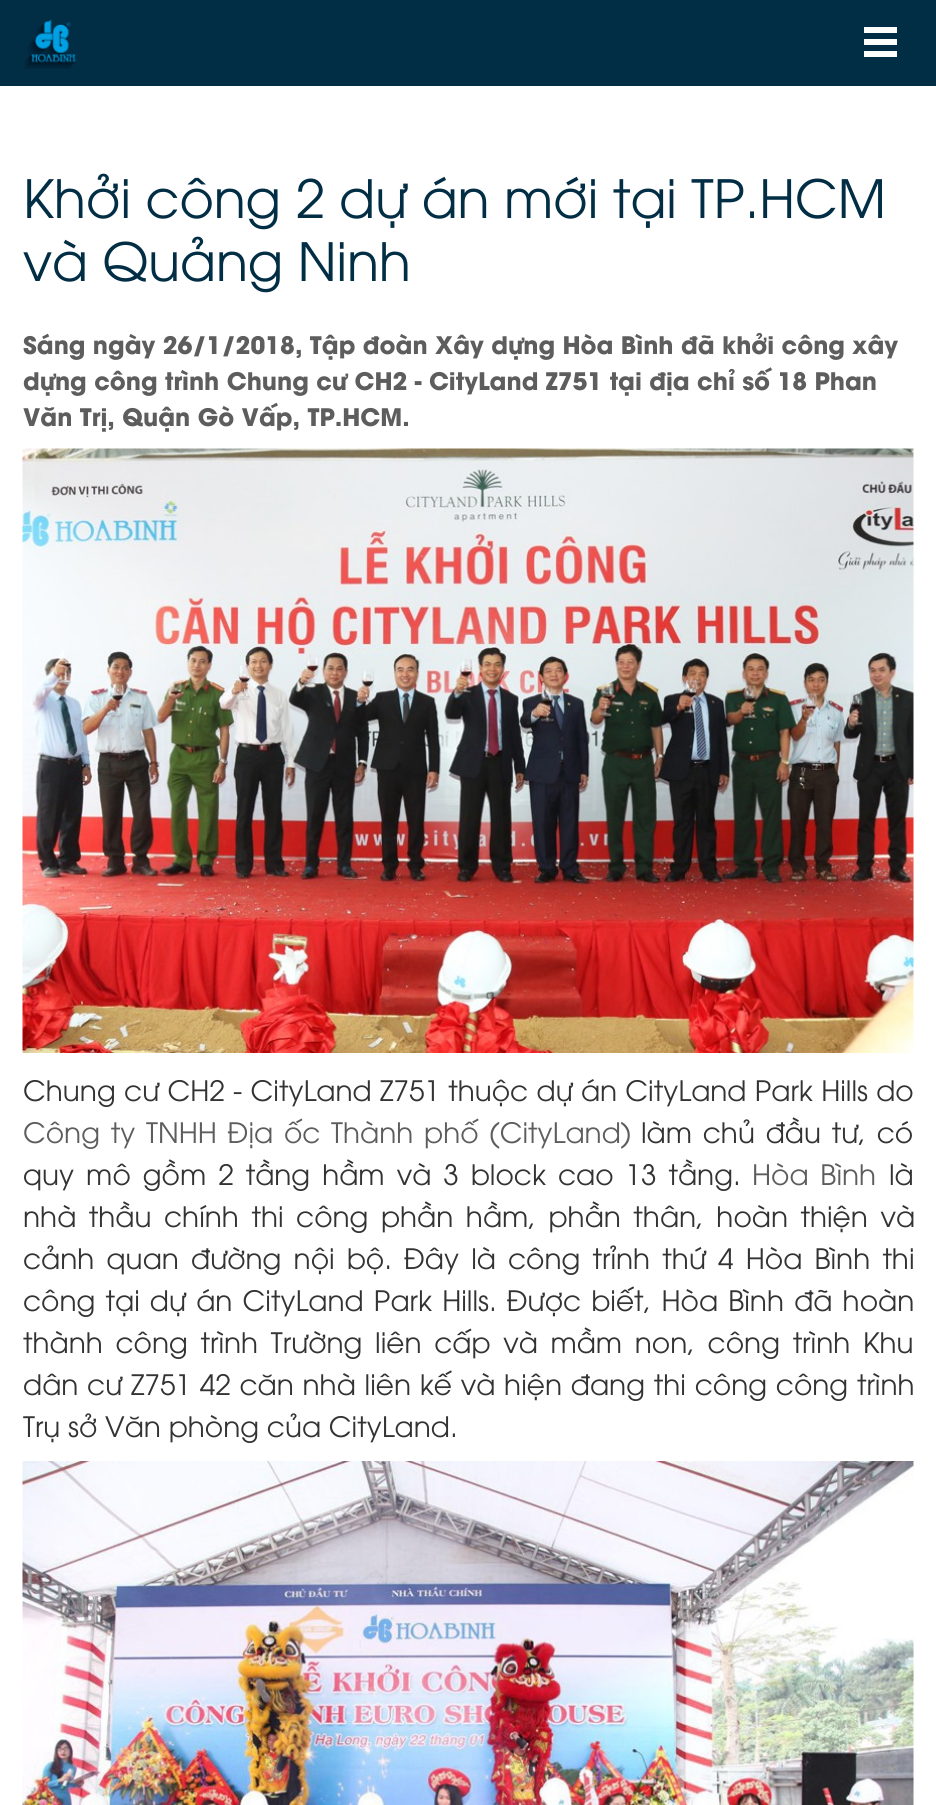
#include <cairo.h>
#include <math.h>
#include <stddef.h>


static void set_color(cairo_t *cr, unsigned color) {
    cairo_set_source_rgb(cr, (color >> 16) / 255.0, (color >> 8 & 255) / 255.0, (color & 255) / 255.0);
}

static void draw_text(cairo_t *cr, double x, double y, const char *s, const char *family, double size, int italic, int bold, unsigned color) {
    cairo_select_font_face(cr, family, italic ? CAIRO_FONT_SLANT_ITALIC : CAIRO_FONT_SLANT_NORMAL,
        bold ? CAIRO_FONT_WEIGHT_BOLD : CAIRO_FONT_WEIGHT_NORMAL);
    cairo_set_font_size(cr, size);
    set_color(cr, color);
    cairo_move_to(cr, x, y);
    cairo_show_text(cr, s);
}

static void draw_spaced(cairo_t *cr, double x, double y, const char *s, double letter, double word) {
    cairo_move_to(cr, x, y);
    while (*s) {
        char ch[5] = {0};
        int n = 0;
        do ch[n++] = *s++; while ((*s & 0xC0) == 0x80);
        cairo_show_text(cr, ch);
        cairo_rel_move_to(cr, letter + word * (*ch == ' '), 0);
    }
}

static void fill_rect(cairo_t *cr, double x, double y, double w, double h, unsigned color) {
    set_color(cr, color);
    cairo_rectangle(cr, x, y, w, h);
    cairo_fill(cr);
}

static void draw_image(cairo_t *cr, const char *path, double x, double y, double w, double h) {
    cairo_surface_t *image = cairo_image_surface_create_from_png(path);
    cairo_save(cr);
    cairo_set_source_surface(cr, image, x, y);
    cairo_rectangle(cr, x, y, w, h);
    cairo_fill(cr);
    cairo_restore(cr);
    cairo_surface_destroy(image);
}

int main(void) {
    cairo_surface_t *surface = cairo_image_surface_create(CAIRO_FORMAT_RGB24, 936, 1805);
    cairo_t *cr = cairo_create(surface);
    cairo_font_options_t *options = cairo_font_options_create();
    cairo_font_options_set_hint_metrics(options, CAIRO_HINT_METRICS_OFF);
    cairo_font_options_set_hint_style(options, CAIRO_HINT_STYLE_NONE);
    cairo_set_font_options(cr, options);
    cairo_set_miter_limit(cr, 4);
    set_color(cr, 0xFFFFFF);
    cairo_paint(cr);
    fill_rect(cr, 0, 0, 936, 86, 0x012D45);
    draw_image(cr, "assets/img1.png", 24, 19, 52, 50);
    fill_rect(cr, 864, 27, 33, 6, 0xFFFFFF);
    fill_rect(cr, 864, 39, 33, 6, 0xFFFFFF);
    fill_rect(cr, 864, 51, 33, 6, 0xFFFFFF);
    draw_text(cr, 23, 218, "Khởi công 2 dự án mới tại TP.HCM", "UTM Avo", 52.5, 0, 0, 0x012D45);
    draw_text(cr, 23, 281, "và Quảng Ninh", "UTM Avo", 52.5, 0, 0, 0x012D45);
    draw_text(cr, 23, 354, "Sáng ngày 26/1/2018, Tập đoàn Xây dựng Hòa Bình đã khởi công xây", "UTM Avo", 24, 0, 1, 0x5D5D5D);
    draw_text(cr, 23, 390, "dựng công trình Chung cư CH2 - CityLand Z751 tại địa chỉ số 18 Phan", "UTM Avo", 24, 0, 1, 0x5D5D5D);
    draw_text(cr, 23, 426, "Văn Trị, Quận Gò Vấp, TP.HCM.", "UTM Avo", 24, 0, 1, 0x5D5D5D);
    draw_image(cr, "assets/img2.png", 22, 448, 892, 605);
    cairo_select_font_face(cr, "UTM Avo", CAIRO_FONT_SLANT_NORMAL, CAIRO_FONT_WEIGHT_NORMAL);
    cairo_set_font_size(cr, 28);
    set_color(cr, 0x333333);
    draw_spaced(cr, 23, 1101, "Chung cư CH2 - CityLand Z751 thuộc dự án CityLand Park Hills do", 0, 0.5);
    set_color(cr, 0x5D5D5D);
    draw_spaced(cr, 23, 1143, "Công ty TNHH Địa ốc Thành phố (CityLand)", 0, 3);
    set_color(cr, 0x333333);
    draw_spaced(cr, 641, 1143, "làm chủ đầu tư, có", 0, 3);
    draw_spaced(cr, 23, 1185, "quy mô gồm 2 tầng hầm và 3 block cao 13 tầng.", 0, 4.25);
    set_color(cr, 0x5D5D5D);
    draw_spaced(cr, 752, 1185, "Hòa Bình", 0, 4);
    draw_text(cr, 889, 1185, "là", "UTM Avo", 28, 0, 0, 0x333333);
    draw_spaced(cr, 23, 1227, "nhà thầu chính thi công phần hầm, phần thân, hoàn thiện và", 0, 4.75);
    draw_spaced(cr, 23, 1269, "cảnh quan đường nội bộ. Đây là công trỉnh thứ 4 Hòa Bình thi", 0, 4.4);
    draw_spaced(cr, 23, 1311, "công tại dự án CityLand Park Hills. Được biết, Hòa Bình đã hoàn", 0, 2.4);
    draw_spaced(cr, 23, 1353, "thành công trình Trường liên cấp và mầm non, công trình Khu", 0, 4.9);
    draw_spaced(cr, 23, 1395, "dân cư Z751 42 căn nhà liên kế và hiện đang thi công công trình", 0, 1);
    draw_text(cr, 23, 1437, "Trụ sở Văn phòng của CityLand.", "UTM Avo", 28, 0, 0, 0x333333);
    draw_image(cr, "assets/img3.png", 22, 1461, 892, 344);
    cairo_surface_write_to_png(surface, "output.png");
    cairo_font_options_destroy(options);
    cairo_destroy(cr);
    cairo_surface_destroy(surface);
    return 0;
}
